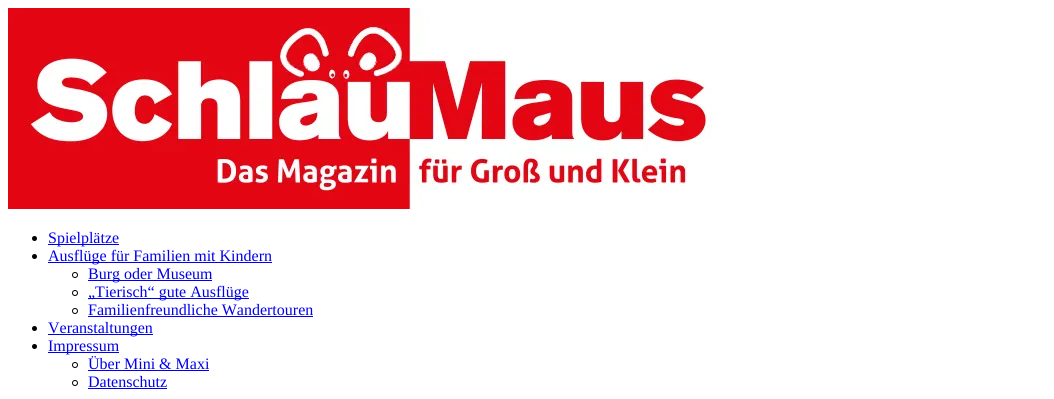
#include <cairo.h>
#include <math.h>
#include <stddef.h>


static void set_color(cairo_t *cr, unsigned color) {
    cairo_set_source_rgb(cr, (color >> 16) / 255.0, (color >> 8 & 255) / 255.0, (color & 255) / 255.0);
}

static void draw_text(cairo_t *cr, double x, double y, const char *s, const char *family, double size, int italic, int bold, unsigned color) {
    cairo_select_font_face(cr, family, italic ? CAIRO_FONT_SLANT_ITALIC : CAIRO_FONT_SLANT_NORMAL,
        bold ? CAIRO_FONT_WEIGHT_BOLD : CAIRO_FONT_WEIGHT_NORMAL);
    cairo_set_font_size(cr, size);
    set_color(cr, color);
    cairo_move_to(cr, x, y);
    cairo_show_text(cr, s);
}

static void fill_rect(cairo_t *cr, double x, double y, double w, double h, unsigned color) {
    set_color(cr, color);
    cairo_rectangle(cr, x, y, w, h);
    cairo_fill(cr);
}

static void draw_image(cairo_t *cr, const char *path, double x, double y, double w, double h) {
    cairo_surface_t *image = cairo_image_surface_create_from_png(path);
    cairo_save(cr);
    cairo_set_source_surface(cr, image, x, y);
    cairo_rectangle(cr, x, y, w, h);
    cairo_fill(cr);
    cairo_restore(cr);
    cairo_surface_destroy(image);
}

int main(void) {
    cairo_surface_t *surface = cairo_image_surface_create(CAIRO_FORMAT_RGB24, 1054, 399);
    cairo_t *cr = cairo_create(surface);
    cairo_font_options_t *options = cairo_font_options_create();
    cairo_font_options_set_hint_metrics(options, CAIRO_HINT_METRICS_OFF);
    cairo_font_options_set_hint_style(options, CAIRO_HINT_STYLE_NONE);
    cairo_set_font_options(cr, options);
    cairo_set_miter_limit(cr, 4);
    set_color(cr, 0xFFFFFF);
    cairo_paint(cr);
    draw_image(cr, "assets/img1.png", 8, 8, 704, 201);
    set_color(cr, 0x000000);
    cairo_arc(cr, 34.5, 238.5, 2.5, 0, 2 * M_PI);
    cairo_fill(cr);
    fill_rect(cr, 48, 244, 71, 1, 0x0000EE);
    draw_text(cr, 48, 243, "Spielplätze", "Liberation Serif", 16, 0, 0, 0x0000EE);
    set_color(cr, 0x000000);
    cairo_new_path(cr);
    cairo_arc(cr, 34.5, 256.5, 2.5, 0, 2 * M_PI);
    cairo_fill(cr);
    fill_rect(cr, 48, 262, 224, 1, 0x0000EE);
    draw_text(cr, 48, 261, "Ausflüge für Familien mit Kindern", "Liberation Serif", 16, 0, 0, 0x0000EE);
    cairo_new_path(cr);
    cairo_arc(cr, 75, 275, 2.5, 0, 2 * M_PI);
    set_color(cr, 0x000000);
    cairo_set_line_width(cr, 1);
    cairo_stroke(cr);
    fill_rect(cr, 88, 280, 124, 1, 0x0000EE);
    draw_text(cr, 88, 279, "Burg oder Museum", "Liberation Serif", 16, 0, 0, 0x0000EE);
    cairo_new_path(cr);
    cairo_arc(cr, 75, 293, 2.5, 0, 2 * M_PI);
    set_color(cr, 0x000000);
    cairo_stroke(cr);
    fill_rect(cr, 88, 298, 161, 1, 0x0000EE);
    draw_text(cr, 88, 297, "„Tierisch“ gute Ausflüge", "Liberation Serif", 16, 0, 0, 0x0000EE);
    cairo_new_path(cr);
    cairo_arc(cr, 75, 311, 2.5, 0, 2 * M_PI);
    set_color(cr, 0x000000);
    cairo_stroke(cr);
    draw_text(cr, 88, 315, "Familienfreundliche Wandertouren", "Liberation Serif", 16, 0, 0, 0x0000EE);
    fill_rect(cr, 88, 316, 225, 1, 0x0000EE);
    set_color(cr, 0x000000);
    cairo_new_path(cr);
    cairo_arc(cr, 34.5, 328.5, 2.5, 0, 2 * M_PI);
    cairo_fill(cr);
    fill_rect(cr, 48, 334, 105, 1, 0x0000EE);
    draw_text(cr, 48, 333, "Veranstaltungen", "Liberation Serif", 16, 0, 0, 0x0000EE);
    set_color(cr, 0x000000);
    cairo_new_path(cr);
    cairo_arc(cr, 34.5, 346.5, 2.5, 0, 2 * M_PI);
    cairo_fill(cr);
    fill_rect(cr, 48, 352, 71, 1, 0x0000EE);
    draw_text(cr, 48, 351, "Impressum", "Liberation Serif", 16, 0, 0, 0x0000EE);
    cairo_new_path(cr);
    cairo_arc(cr, 75, 365, 2.5, 0, 2 * M_PI);
    set_color(cr, 0x000000);
    cairo_stroke(cr);
    draw_text(cr, 88, 369, "Über Mini & Maxi", "Liberation Serif", 16, 0, 0, 0x0000EE);
    fill_rect(cr, 88, 370, 121, 1, 0x0000EE);
    cairo_new_path(cr);
    cairo_arc(cr, 75, 383, 2.5, 0, 2 * M_PI);
    set_color(cr, 0x000000);
    cairo_stroke(cr);
    draw_text(cr, 88, 387, "Datenschutz", "Liberation Serif", 16, 0, 0, 0x0000EE);
    fill_rect(cr, 88, 388, 79, 1, 0x0000EE);
    cairo_surface_write_to_png(surface, "output.png");
    cairo_font_options_destroy(options);
    cairo_destroy(cr);
    cairo_surface_destroy(surface);
    return 0;
}
